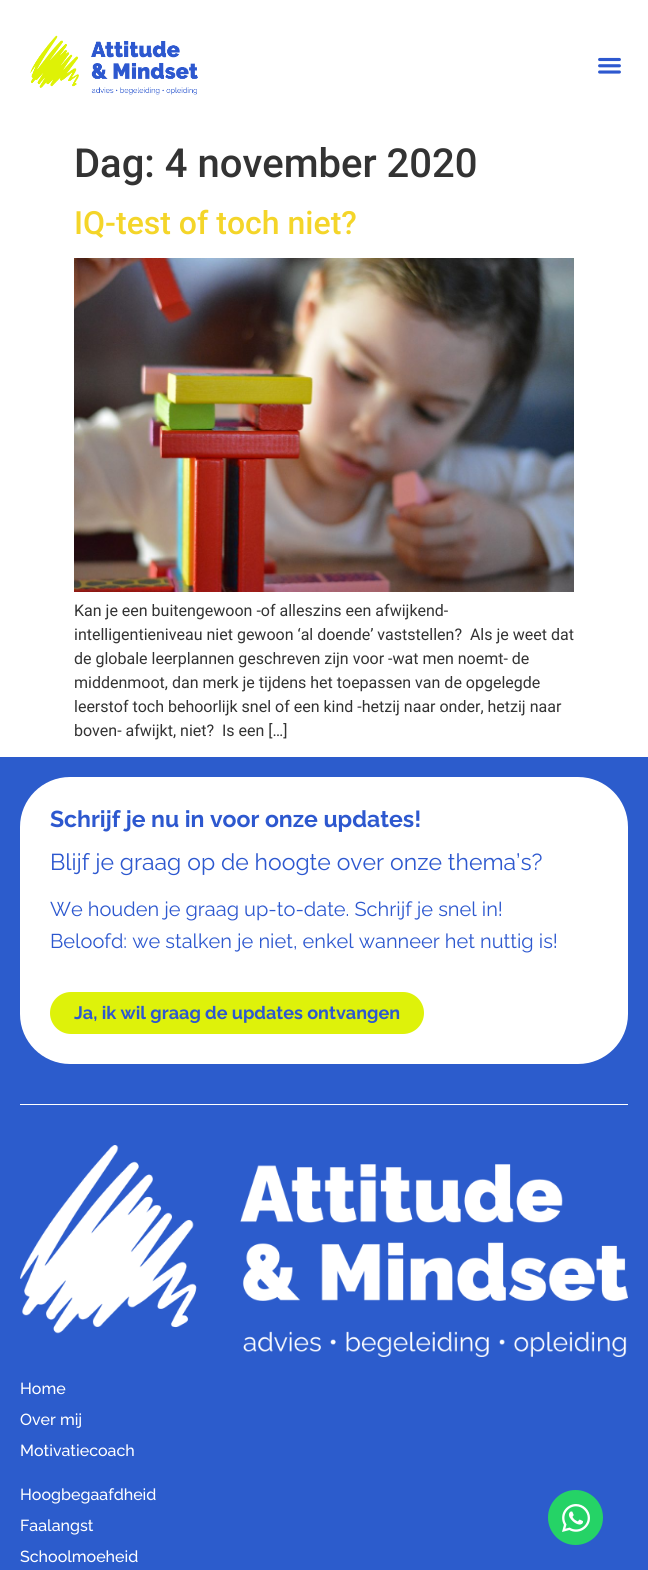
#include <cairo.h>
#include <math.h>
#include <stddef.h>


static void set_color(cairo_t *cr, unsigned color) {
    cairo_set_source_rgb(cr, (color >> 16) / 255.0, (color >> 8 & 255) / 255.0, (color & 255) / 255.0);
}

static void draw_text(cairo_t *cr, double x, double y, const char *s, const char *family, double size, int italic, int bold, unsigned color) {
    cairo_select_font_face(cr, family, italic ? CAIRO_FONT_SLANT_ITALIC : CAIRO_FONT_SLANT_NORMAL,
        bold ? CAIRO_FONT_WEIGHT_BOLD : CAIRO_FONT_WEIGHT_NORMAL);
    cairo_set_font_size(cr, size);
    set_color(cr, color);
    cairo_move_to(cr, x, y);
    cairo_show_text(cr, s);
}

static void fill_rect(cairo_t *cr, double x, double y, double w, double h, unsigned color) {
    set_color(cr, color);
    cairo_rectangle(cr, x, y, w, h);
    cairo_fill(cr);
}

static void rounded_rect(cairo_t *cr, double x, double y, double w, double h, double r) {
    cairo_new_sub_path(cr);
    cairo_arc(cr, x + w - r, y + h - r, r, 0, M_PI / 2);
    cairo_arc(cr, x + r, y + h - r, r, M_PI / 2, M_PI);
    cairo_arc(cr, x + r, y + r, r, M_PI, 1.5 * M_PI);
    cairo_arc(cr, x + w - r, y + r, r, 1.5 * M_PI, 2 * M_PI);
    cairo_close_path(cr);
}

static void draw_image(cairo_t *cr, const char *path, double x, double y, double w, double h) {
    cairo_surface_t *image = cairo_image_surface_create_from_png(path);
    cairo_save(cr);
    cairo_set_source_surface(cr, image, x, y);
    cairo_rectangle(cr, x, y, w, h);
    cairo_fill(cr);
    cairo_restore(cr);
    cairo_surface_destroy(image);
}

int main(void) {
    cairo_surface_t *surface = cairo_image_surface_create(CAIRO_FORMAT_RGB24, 648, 1570);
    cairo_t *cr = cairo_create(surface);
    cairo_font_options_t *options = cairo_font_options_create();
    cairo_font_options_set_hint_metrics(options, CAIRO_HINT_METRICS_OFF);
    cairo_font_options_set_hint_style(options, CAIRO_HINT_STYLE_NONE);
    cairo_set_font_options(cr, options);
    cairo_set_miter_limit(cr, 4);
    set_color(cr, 0xFFFFFF);
    cairo_paint(cr);
    draw_image(cr, "assets/img1.png", 30, 35, 168, 60);
    draw_image(cr, "assets/img2.png", 598, 57, 23, 17);
    draw_text(cr, 74, 177, "Dag: 4 november 2020", "Roboto Medium", 40, 0, 0, 0x333333);
    draw_text(cr, 74, 234, "IQ-test of toch niet?", "Roboto Medium", 32, 0, 0, 0xF4D529);
    draw_image(cr, "assets/img3.png", 74, 258, 500, 334);
    draw_text(cr, 74, 616, "Kan je een buitengewoon -of alleszins een afwijkend-", "Roboto", 16, 0, 0, 0x333333);
    draw_text(cr, 74, 640, "intelligentieniveau niet gewoon ‘al doende’ vaststellen?  Als je weet dat", "Roboto", 16, 0, 0, 0x333333);
    draw_text(cr, 74, 664, "de globale leerplannen geschreven zijn voor -wat men noemt- de", "Roboto", 16, 0, 0, 0x333333);
    draw_text(cr, 74, 688, "middenmoot, dan merk je tijdens het toepassen van de opgelegde", "Roboto", 16, 0, 0, 0x333333);
    draw_text(cr, 74, 712, "leerstof toch behoorlijk snel of een kind -hetzij naar onder, hetzij naar", "Roboto", 16, 0, 0, 0x333333);
    draw_text(cr, 74, 736, "boven- afwijkt, niet?  Is een […]", "Roboto", 16, 0, 0, 0x333333);
    fill_rect(cr, 0, 757, 648, 813, 0x2C5CCC);
    set_color(cr, 0xFFFFFF);
    rounded_rect(cr, 20, 777, 608, 287, 50);
    cairo_fill(cr);
    draw_text(cr, 50, 827, "Schrijf je nu in voor onze updates!", "Raleway", 23, 0, 1, 0x2D58CF);
    draw_text(cr, 50, 870, "Blijf je graag op de hoogte over onze thema’s?", "Raleway", 23, 0, 0, 0x2D58CF);
    draw_text(cr, 50, 916, "We houden je graag up-to-date. Schrijf je snel in!", "Raleway", 20, 0, 0, 0x2D58CF);
    draw_text(cr, 50, 948, "Beloofd: we stalken je niet, enkel wanneer het nuttig is!", "Raleway", 20, 0, 0, 0x2D58CF);
    set_color(cr, 0xDEF20A);
    rounded_rect(cr, 50, 992, 374, 42, 21);
    cairo_fill(cr);
    draw_text(cr, 74, 1019, "Ja, ik wil graag de updates ontvangen", "Raleway", 18, 0, 1, 0x2D58CF);
    fill_rect(cr, 20, 1104, 608, 1, 0xFFFFFF);
    draw_image(cr, "assets/img4.png", 20, 1145, 608, 212);
    draw_text(cr, 20, 1394, "Home", "Raleway Medium", 16, 0, 0, 0xFFFFFF);
    draw_text(cr, 20, 1425, "Over mij", "Raleway Medium", 16, 0, 0, 0xFFFFFF);
    draw_text(cr, 20, 1456, "Motivatiecoach", "Raleway Medium", 16, 0, 0, 0xFFFFFF);
    draw_text(cr, 20, 1500, "Hoogbegaafdheid", "Raleway Medium", 16, 0, 0, 0xFFFFFF);
    draw_text(cr, 20, 1531, "Faalangst", "Raleway Medium", 16, 0, 0, 0xFFFFFF);
    draw_text(cr, 20, 1562, "Schoolmoeheid", "Raleway Medium", 16, 0, 0, 0xFFFFFF);
    set_color(cr, 0x25D366);
    cairo_new_path(cr);
    cairo_arc(cr, 575.5, 1517.5, 27.5, 0, 2 * M_PI);
    cairo_fill(cr);
    draw_image(cr, "assets/img5.png", 562, 1504, 28, 28);
    cairo_surface_write_to_png(surface, "output.png");
    cairo_font_options_destroy(options);
    cairo_destroy(cr);
    cairo_surface_destroy(surface);
    return 0;
}
